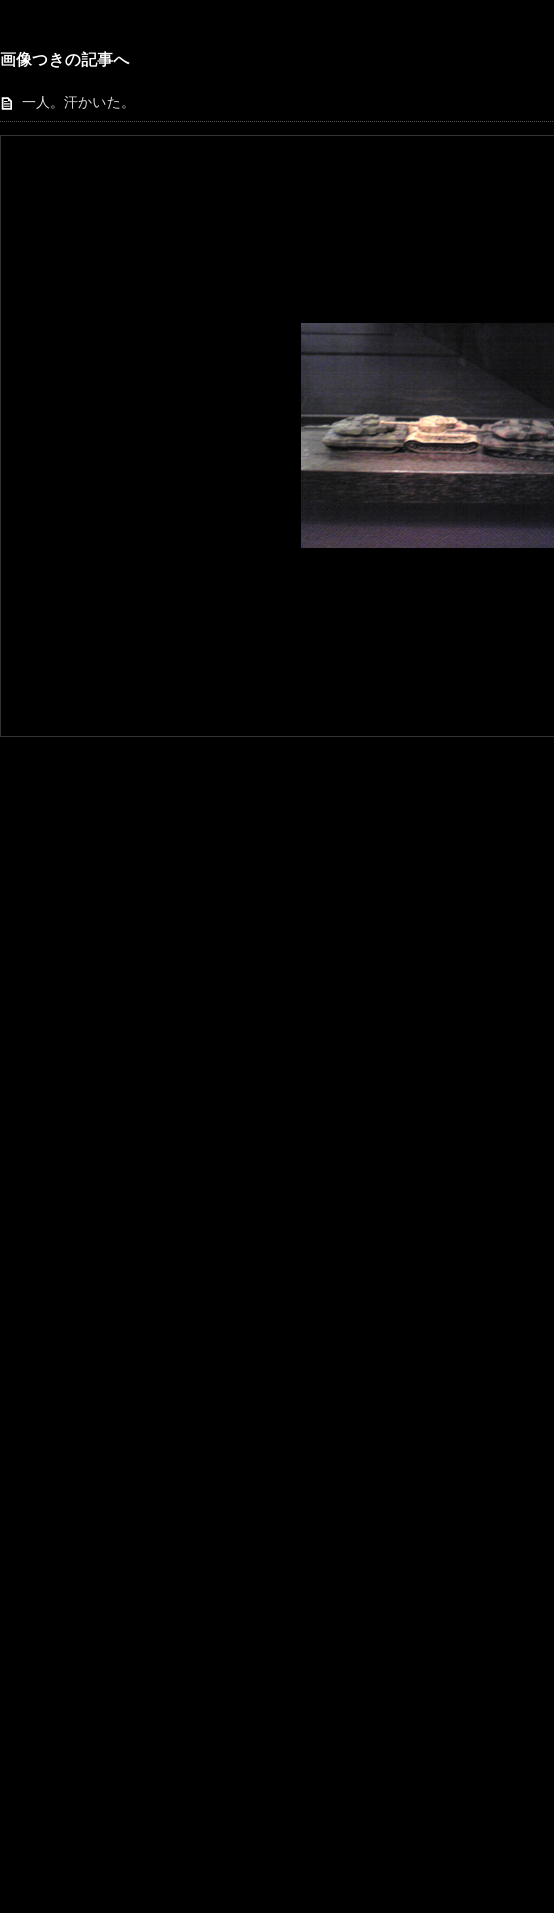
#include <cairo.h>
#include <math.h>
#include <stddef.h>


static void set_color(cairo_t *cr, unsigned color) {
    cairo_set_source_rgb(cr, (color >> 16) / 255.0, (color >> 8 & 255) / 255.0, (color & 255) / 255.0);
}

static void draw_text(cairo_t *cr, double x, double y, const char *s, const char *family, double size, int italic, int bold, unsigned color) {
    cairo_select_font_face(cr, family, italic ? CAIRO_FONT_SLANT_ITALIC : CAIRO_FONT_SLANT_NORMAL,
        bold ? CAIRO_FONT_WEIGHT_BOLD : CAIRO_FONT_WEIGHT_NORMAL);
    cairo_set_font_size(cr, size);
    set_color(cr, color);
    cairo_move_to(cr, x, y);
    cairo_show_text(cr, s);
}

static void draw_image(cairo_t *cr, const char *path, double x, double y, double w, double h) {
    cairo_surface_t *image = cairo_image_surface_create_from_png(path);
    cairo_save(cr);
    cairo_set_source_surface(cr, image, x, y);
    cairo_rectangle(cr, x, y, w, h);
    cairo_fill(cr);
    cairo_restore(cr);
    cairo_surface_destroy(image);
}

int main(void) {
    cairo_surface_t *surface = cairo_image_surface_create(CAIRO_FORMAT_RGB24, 554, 1913);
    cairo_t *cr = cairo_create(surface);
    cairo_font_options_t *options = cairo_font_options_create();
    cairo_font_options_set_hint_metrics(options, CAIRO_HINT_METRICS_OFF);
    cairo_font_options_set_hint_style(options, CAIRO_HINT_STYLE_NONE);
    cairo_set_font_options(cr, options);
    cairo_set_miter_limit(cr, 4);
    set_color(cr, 0x000000);
    cairo_paint(cr);
    draw_text(cr, 0, 65, "画像つきの記事へ", "WenQuanYi Zen Hei", 16, 0, 1, 0xFFFFFF);
    draw_image(cr, "assets/img1.png", 1, 97, 11, 13);
    cairo_new_path(cr);
    cairo_move_to(cr, 0, 121.5);
    cairo_line_to(cr, 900, 121.5);
    set_color(cr, 0x555555);
    cairo_set_line_width(cr, 1);
    cairo_set_dash(cr, (double[]){1, 1}, 2, 0);
    cairo_stroke(cr);
    draw_text(cr, 22, 107, "一人。汗かいた。", "WenQuanYi Zen Hei Medium", 14, 0, 0, 0xDDDDDD);
    cairo_rectangle(cr, 0.5, 135.5, 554, 601);
    set_color(cr, 0x333333);
    cairo_set_dash(cr, NULL, 0, 0);
    cairo_stroke(cr);
    draw_image(cr, "assets/img2.png", 301, 323, 253, 225);
    cairo_surface_write_to_png(surface, "output.png");
    cairo_font_options_destroy(options);
    cairo_destroy(cr);
    cairo_surface_destroy(surface);
    return 0;
}
